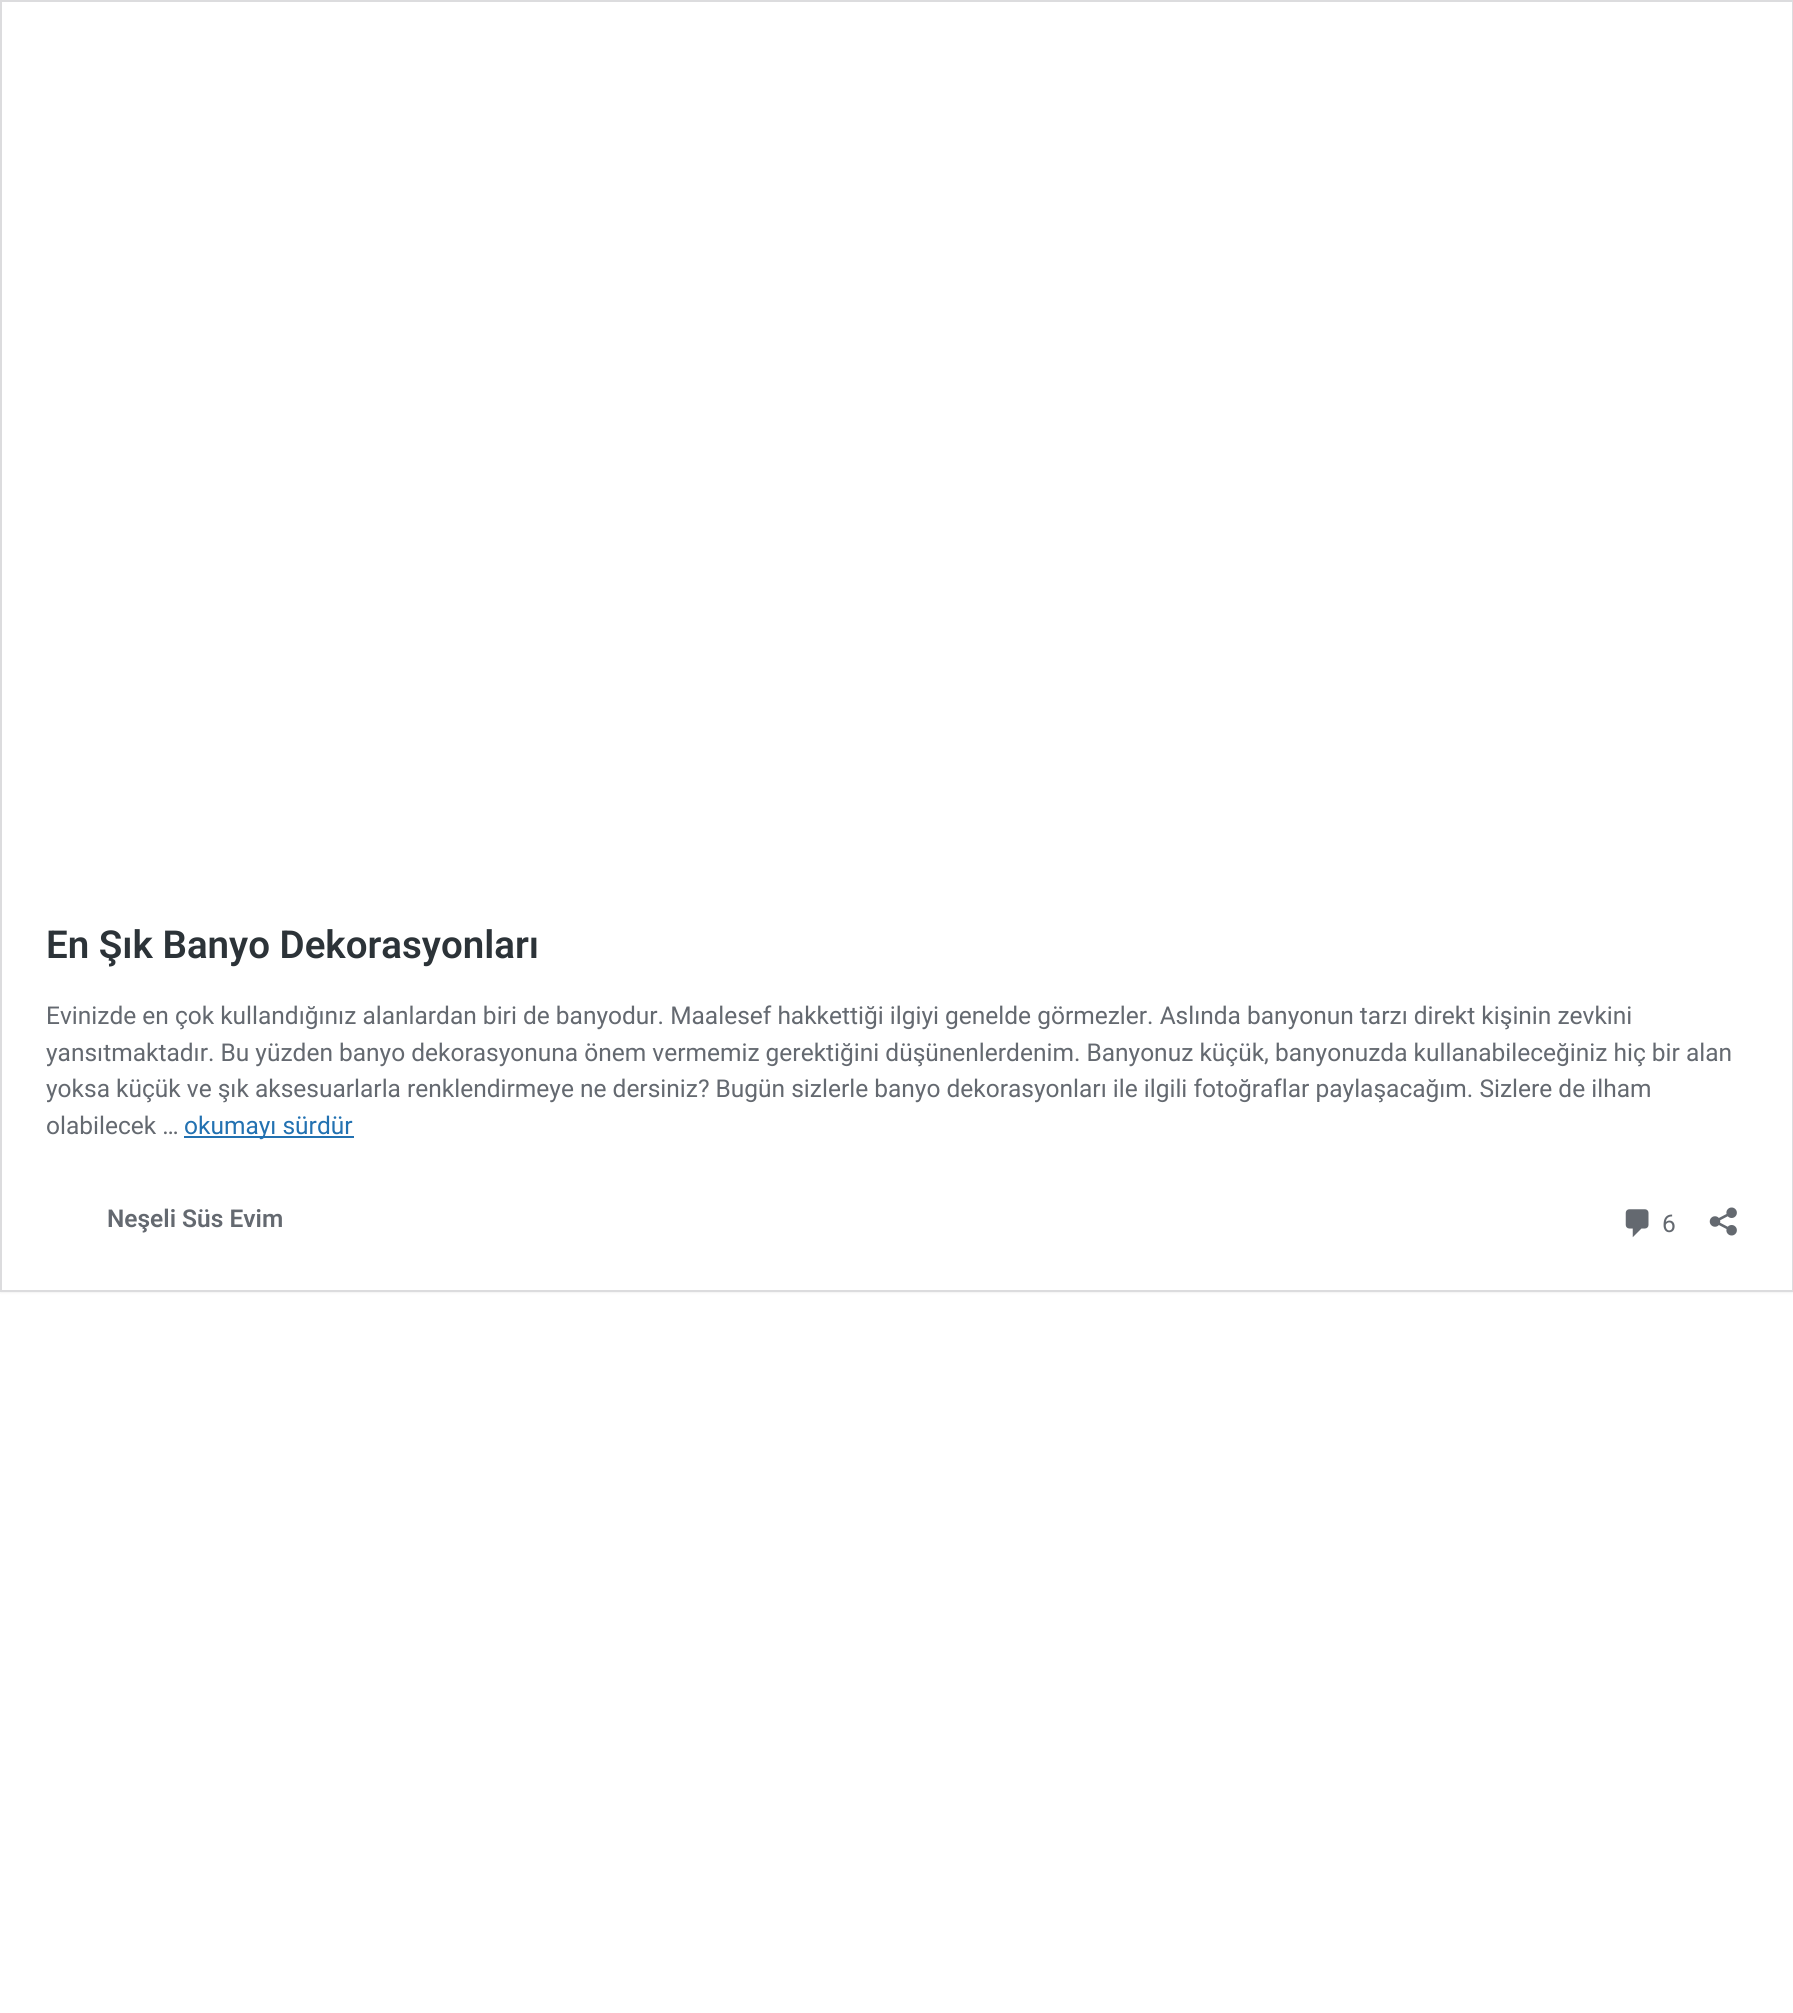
#include <cairo.h>
#include <math.h>
#include <stddef.h>


static void set_color(cairo_t *cr, unsigned color) {
    cairo_set_source_rgb(cr, (color >> 16) / 255.0, (color >> 8 & 255) / 255.0, (color & 255) / 255.0);
}

static void draw_text(cairo_t *cr, double x, double y, const char *s, const char *family, double size, int italic, int bold, unsigned color) {
    cairo_select_font_face(cr, family, italic ? CAIRO_FONT_SLANT_ITALIC : CAIRO_FONT_SLANT_NORMAL,
        bold ? CAIRO_FONT_WEIGHT_BOLD : CAIRO_FONT_WEIGHT_NORMAL);
    cairo_set_font_size(cr, size);
    set_color(cr, color);
    cairo_move_to(cr, x, y);
    cairo_show_text(cr, s);
}

static void fill_rect(cairo_t *cr, double x, double y, double w, double h, unsigned color) {
    set_color(cr, color);
    cairo_rectangle(cr, x, y, w, h);
    cairo_fill(cr);
}

static void rounded_rect(cairo_t *cr, double x, double y, double w, double h, double r) {
    cairo_new_sub_path(cr);
    cairo_arc(cr, x + w - r, y + h - r, r, 0, M_PI / 2);
    cairo_arc(cr, x + r, y + h - r, r, M_PI / 2, M_PI);
    cairo_arc(cr, x + r, y + r, r, M_PI, 1.5 * M_PI);
    cairo_arc(cr, x + w - r, y + r, r, 1.5 * M_PI, 2 * M_PI);
    cairo_close_path(cr);
}

static void draw_shadow(cairo_t *cr, double x, double y, double w, double h, double r, double blur, double alpha) {
    cairo_push_group_with_content(cr, CAIRO_CONTENT_ALPHA);
    cairo_set_operator(cr, CAIRO_OPERATOR_SOURCE);
    for (int i = 15; i >= -15 && fmin(w, h) + blur * i / 3 > 0; i -= 2) {
        double e = blur * i / 6;
        cairo_set_source_rgba(cr, 0, 0, 0, alpha * erfc((i - 1) / 8.5) / 2);
        rounded_rect(cr, x - e, y - e, w + 2 * e, h + 2 * e, fmax(0, fmin(r + e + blur * .6, fmin(w, h) / 2 + e)));
        cairo_fill(cr);
    }
    cairo_pattern_t *soft = cairo_pop_group(cr);
    cairo_mask(cr, soft);
    cairo_pattern_destroy(soft);
}

static void draw_image(cairo_t *cr, const char *path, double x, double y, double w, double h) {
    cairo_surface_t *image = cairo_image_surface_create_from_png(path);
    cairo_save(cr);
    cairo_set_source_surface(cr, image, x, y);
    cairo_rectangle(cr, x, y, w, h);
    cairo_fill(cr);
    cairo_restore(cr);
    cairo_surface_destroy(image);
}

int main(void) {
    cairo_surface_t *surface = cairo_image_surface_create(CAIRO_FORMAT_RGB24, 1793, 2013);
    cairo_t *cr = cairo_create(surface);
    cairo_font_options_t *options = cairo_font_options_create();
    cairo_font_options_set_hint_metrics(options, CAIRO_HINT_METRICS_OFF);
    cairo_font_options_set_hint_style(options, CAIRO_HINT_STYLE_NONE);
    cairo_set_font_options(cr, options);
    cairo_set_miter_limit(cr, 4);
    set_color(cr, 0xFFFFFF);
    cairo_paint(cr);
    set_color(cr, 0x000000);
    draw_shadow(cr, 0, 2, 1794, 1291, 0, 1, 0.05);
    set_color(cr, 0xFFFFFF);
    cairo_rectangle(cr, 1, 1, 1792, 1290);
    cairo_fill_preserve(cr);
    set_color(cr, 0xDCDCDE);
    cairo_stroke(cr);
    draw_text(cr, 46, 958, "En Şık Banyo Dekorasyonları", "Roboto SemiBold", 38.5, 0, 0, 0x2C3338);
    draw_text(cr, 46, 1024, "Evinizde en çok kullandığınız alanlardan biri de banyodur. Maalesef hakkettiği ilgiyi genelde görmezler. Aslında banyonun tarzı direkt kişinin zevkini", "Roboto", 24.5, 0, 0, 0x646970);
    draw_text(cr, 46, 1061, "yansıtmaktadır. Bu yüzden banyo dekorasyonuna önem vermemiz gerektiğini düşünenlerdenim. Banyonuz küçük, banyonuzda kullanabileceğiniz hiç bir alan", "Roboto", 24.5, 0, 0, 0x646970);
    draw_text(cr, 46, 1097, "yoksa küçük ve şık aksesuarlarla renklendirmeye ne dersiniz? Bugün sizlerle banyo dekorasyonları ile ilgili fotoğraflar paylaşacağım. Sizlere de ilham", "Roboto", 24.5, 0, 0, 0x646970);
    draw_text(cr, 46, 1134, "olabilecek …", "Roboto", 24.5, 0, 0, 0x646970);
    fill_rect(cr, 184, 1136, 170, 2, 0x2271B1);
    draw_text(cr, 184, 1134, "okumayı sürdür", "Roboto", 24.5, 0, 0, 0x2271B1);
    draw_text(cr, 107, 1227, "Neşeli Süs Evim", "Roboto SemiBold", 24.5, 0, 0, 0x646970);
    draw_image(cr, "assets/img1.png", 1625, 1209, 24, 29);
    draw_text(cr, 1662, 1232, "6", "Roboto", 24.5, 0, 0, 0x646970);
    draw_image(cr, "assets/img2.png", 1709, 1207, 28, 29);
    cairo_surface_write_to_png(surface, "output.png");
    cairo_font_options_destroy(options);
    cairo_destroy(cr);
    cairo_surface_destroy(surface);
    return 0;
}
